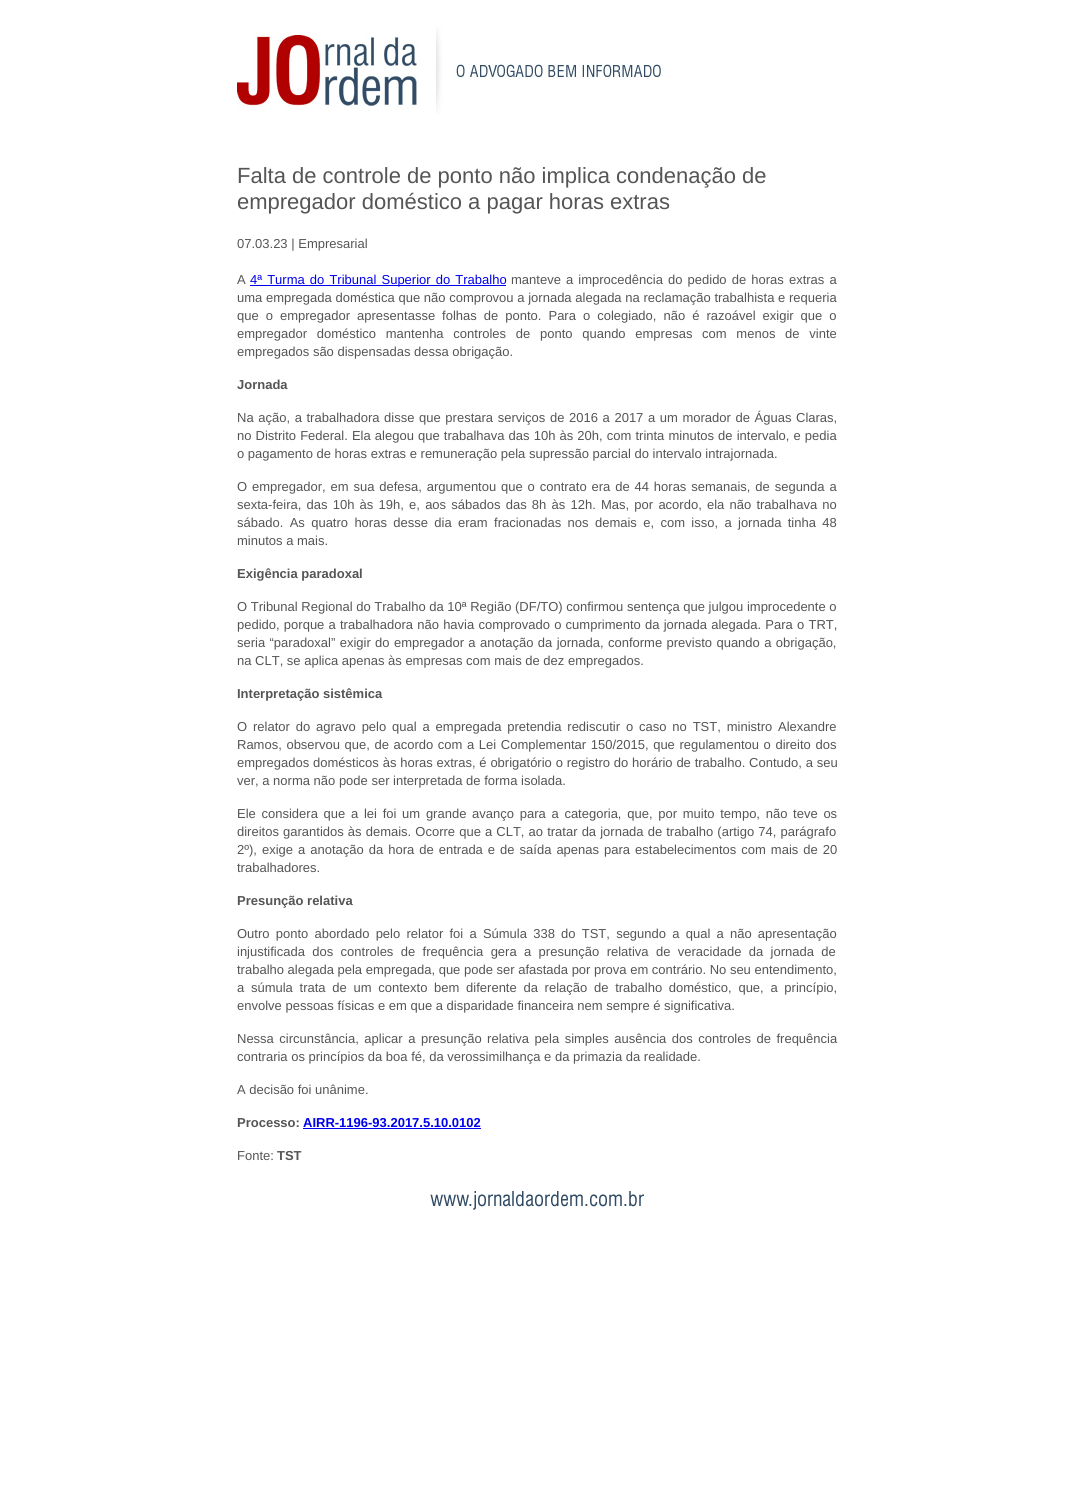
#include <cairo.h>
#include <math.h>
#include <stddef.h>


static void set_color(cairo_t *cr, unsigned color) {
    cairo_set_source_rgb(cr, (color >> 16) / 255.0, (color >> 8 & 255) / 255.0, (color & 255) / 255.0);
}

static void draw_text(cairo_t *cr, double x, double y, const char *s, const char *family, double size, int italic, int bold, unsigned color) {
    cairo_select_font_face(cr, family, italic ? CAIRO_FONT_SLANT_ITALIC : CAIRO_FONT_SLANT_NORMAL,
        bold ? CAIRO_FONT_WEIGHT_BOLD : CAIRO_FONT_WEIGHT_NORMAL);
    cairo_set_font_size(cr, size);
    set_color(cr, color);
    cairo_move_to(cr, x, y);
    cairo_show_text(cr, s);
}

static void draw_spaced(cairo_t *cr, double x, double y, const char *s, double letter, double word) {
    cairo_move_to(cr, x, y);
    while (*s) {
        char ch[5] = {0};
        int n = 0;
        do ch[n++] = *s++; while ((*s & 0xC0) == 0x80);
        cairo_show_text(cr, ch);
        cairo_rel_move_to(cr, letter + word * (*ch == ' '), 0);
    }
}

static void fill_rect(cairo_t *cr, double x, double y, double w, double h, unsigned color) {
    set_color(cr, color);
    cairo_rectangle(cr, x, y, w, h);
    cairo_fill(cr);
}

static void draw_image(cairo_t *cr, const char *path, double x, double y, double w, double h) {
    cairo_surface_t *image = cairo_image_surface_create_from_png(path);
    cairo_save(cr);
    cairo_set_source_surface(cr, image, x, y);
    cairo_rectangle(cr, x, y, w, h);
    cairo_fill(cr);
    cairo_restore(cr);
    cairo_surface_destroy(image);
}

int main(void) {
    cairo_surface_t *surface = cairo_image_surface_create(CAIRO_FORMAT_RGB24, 1073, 1512);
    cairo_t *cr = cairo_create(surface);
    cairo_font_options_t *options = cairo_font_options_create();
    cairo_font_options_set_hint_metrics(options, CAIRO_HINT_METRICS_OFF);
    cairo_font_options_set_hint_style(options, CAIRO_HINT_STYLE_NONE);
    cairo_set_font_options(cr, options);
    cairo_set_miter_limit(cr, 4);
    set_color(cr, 0xFFFFFF);
    cairo_paint(cr);
    draw_image(cr, "assets/img1.png", 237, 26, 424, 88);
    draw_text(cr, 237, 183, "Falta de controle de ponto não implica condenação de", "Liberation Sans", 22, 0, 0, 0x555555);
    draw_text(cr, 237, 209, "empregador doméstico a pagar horas extras", "Liberation Sans", 22, 0, 0, 0x555555);
    draw_text(cr, 237, 248, "07.03.23 | Empresarial", "Liberation Sans", 13, 0, 0, 0x555555);
    draw_text(cr, 237, 284, "A", "Liberation Sans", 13, 0, 0, 0x555555);
    fill_rect(cr, 250, 285, 256, 1, 0x0000EE);
    draw_spaced(cr, 250, 284, "4ª Turma do Tribunal Superior do Trabalho", 0, 1.5);
    set_color(cr, 0x555555);
    draw_spaced(cr, 511, 284, "manteve a improcedência do pedido de horas extras a", 0, 1.5);
    draw_spaced(cr, 237, 302, "uma empregada doméstica que não comprovou a jornada alegada na reclamação trabalhista e requeria", 0, 0.1);
    draw_spaced(cr, 237, 320, "que o empregador apresentasse folhas de ponto. Para o colegiado, não é razoável exigir que o", 0, 3.4);
    draw_spaced(cr, 237, 338, "empregador doméstico mantenha controles de ponto quando empresas com menos de vinte", 0, 6.1);
    draw_text(cr, 237, 356, "empregados são dispensadas dessa obrigação.", "Liberation Sans", 13, 0, 0, 0x555555);
    draw_text(cr, 237, 389, "Jornada", "Liberation Sans", 13, 0, 1, 0x555555);
    cairo_select_font_face(cr, "Liberation Sans", CAIRO_FONT_SLANT_NORMAL, CAIRO_FONT_WEIGHT_NORMAL);
    draw_spaced(cr, 237, 422, "Na ação, a trabalhadora disse que prestara serviços de 2016 a 2017 a um morador de Águas Claras,", 0, 1);
    draw_spaced(cr, 237, 440, "no Distrito Federal. Ela alegou que trabalhava das 10h às 20h, com trinta minutos de intervalo, e pedia", 0, 0.5);
    draw_text(cr, 237, 458, "o pagamento de horas extras e remuneração pela supressão parcial do intervalo intrajornada.", "Liberation Sans", 13, 0, 0, 0x555555);
    draw_spaced(cr, 237, 491, "O empregador, em sua defesa, argumentou que o contrato era de 44 horas semanais, de segunda a", 0, 1.25);
    draw_spaced(cr, 237, 509, "sexta-feira, das 10h às 19h, e, aos sábados das 8h às 12h. Mas, por acordo, ela não trabalhava no", 0, 1.6);
    draw_spaced(cr, 237, 527, "sábado. As quatro horas desse dia eram fracionadas nos demais e, com isso, a jornada tinha 48", 0, 2.75);
    draw_text(cr, 237, 545, "minutos a mais.", "Liberation Sans", 13, 0, 0, 0x555555);
    draw_text(cr, 237, 578, "Exigência paradoxal", "Liberation Sans", 13, 0, 1, 0x555555);
    draw_text(cr, 237, 611, "O Tribunal Regional do Trabalho da 10ª Região (DF/TO) confirmou sentença que julgou improcedente o", "Liberation Sans", 13, 0, 0, 0x555555);
    draw_spaced(cr, 237, 629, "pedido, porque a trabalhadora não havia comprovado o cumprimento da jornada alegada. Para o TRT,", 0, 0.6);
    draw_spaced(cr, 237, 647, "seria “paradoxal” exigir do empregador a anotação da jornada, conforme previsto quando a obrigação,", 0, 0.75);
    draw_text(cr, 237, 665, "na CLT, se aplica apenas às empresas com mais de dez empregados.", "Liberation Sans", 13, 0, 0, 0x555555);
    draw_text(cr, 237, 698, "Interpretação sistêmica", "Liberation Sans", 13, 0, 1, 0x555555);
    cairo_select_font_face(cr, "Liberation Sans", CAIRO_FONT_SLANT_NORMAL, CAIRO_FONT_WEIGHT_NORMAL);
    draw_spaced(cr, 237, 731, "O relator do agravo pelo qual a empregada pretendia rediscutir o caso no TST, ministro Alexandre", 0, 2.25);
    draw_spaced(cr, 237, 749, "Ramos, observou que, de acordo com a Lei Complementar 150/2015, que regulamentou o direito dos", 0, 1);
    draw_spaced(cr, 237, 767, "empregados domésticos às horas extras, é obrigatório o registro do horário de trabalho. Contudo, a seu", 0, 0.2);
    draw_text(cr, 237, 785, "ver, a norma não pode ser interpretada de forma isolada.", "Liberation Sans", 13, 0, 0, 0x555555);
    draw_spaced(cr, 237, 818, "Ele considera que a lei foi um grande avanço para a categoria, que, por muito tempo, não teve os", 0, 2.1);
    draw_spaced(cr, 237, 836, "direitos garantidos às demais. Ocorre que a CLT, ao tratar da jornada de trabalho (artigo 74, parágrafo", 0, 0.5);
    draw_spaced(cr, 237, 854, "2º), exige a anotação da hora de entrada e de saída apenas para estabelecimentos com mais de 20", 0, 1.4);
    draw_text(cr, 237, 872, "trabalhadores.", "Liberation Sans", 13, 0, 0, 0x555555);
    draw_text(cr, 237, 905, "Presunção relativa", "Liberation Sans", 13, 0, 1, 0x555555);
    cairo_select_font_face(cr, "Liberation Sans", CAIRO_FONT_SLANT_NORMAL, CAIRO_FONT_WEIGHT_NORMAL);
    draw_spaced(cr, 237, 938, "Outro ponto abordado pelo relator foi a Súmula 338 do TST, segundo a qual a não apresentação", 0, 2.6);
    draw_spaced(cr, 237, 956, "injustificada dos controles de frequência gera a presunção relativa de veracidade da jornada de", 0, 3.75);
    draw_text(cr, 237, 974, "trabalho alegada pela empregada, que pode ser afastada por prova em contrário. No seu entendimento,", "Liberation Sans", 13, 0, 0, 0x555555);
    draw_spaced(cr, 237, 992, "a súmula trata de um contexto bem diferente da relação de trabalho doméstico, que, a princípio,", 0, 3.1);
    draw_text(cr, 237, 1010, "envolve pessoas físicas e em que a disparidade financeira nem sempre é significativa.", "Liberation Sans", 13, 0, 0, 0x555555);
    draw_spaced(cr, 237, 1043, "Nessa circunstância, aplicar a presunção relativa pela simples ausência dos controles de frequência", 0, 1.9);
    draw_text(cr, 237, 1061, "contraria os princípios da boa fé, da verossimilhança e da primazia da realidade.", "Liberation Sans", 13, 0, 0, 0x555555);
    draw_text(cr, 237, 1094, "A decisão foi unânime.", "Liberation Sans", 13, 0, 0, 0x555555);
    draw_text(cr, 237, 1127, "Processo:", "Liberation Sans", 13, 0, 1, 0x555555);
    draw_text(cr, 303, 1127, "AIRR-1196-93.2017.5.10.0102", "Liberation Sans", 13, 0, 1, 0x0000EE);
    fill_rect(cr, 303, 1128, 178, 1, 0x0000EE);
    draw_text(cr, 237, 1160, "Fonte:", "Liberation Sans", 13, 0, 0, 0x555555);
    draw_text(cr, 277, 1160, "TST", "Liberation Sans", 13, 0, 1, 0x555555);
    draw_image(cr, "assets/img2.png", 430, 1191, 214, 19);
    cairo_surface_write_to_png(surface, "output.png");
    cairo_font_options_destroy(options);
    cairo_destroy(cr);
    cairo_surface_destroy(surface);
    return 0;
}
